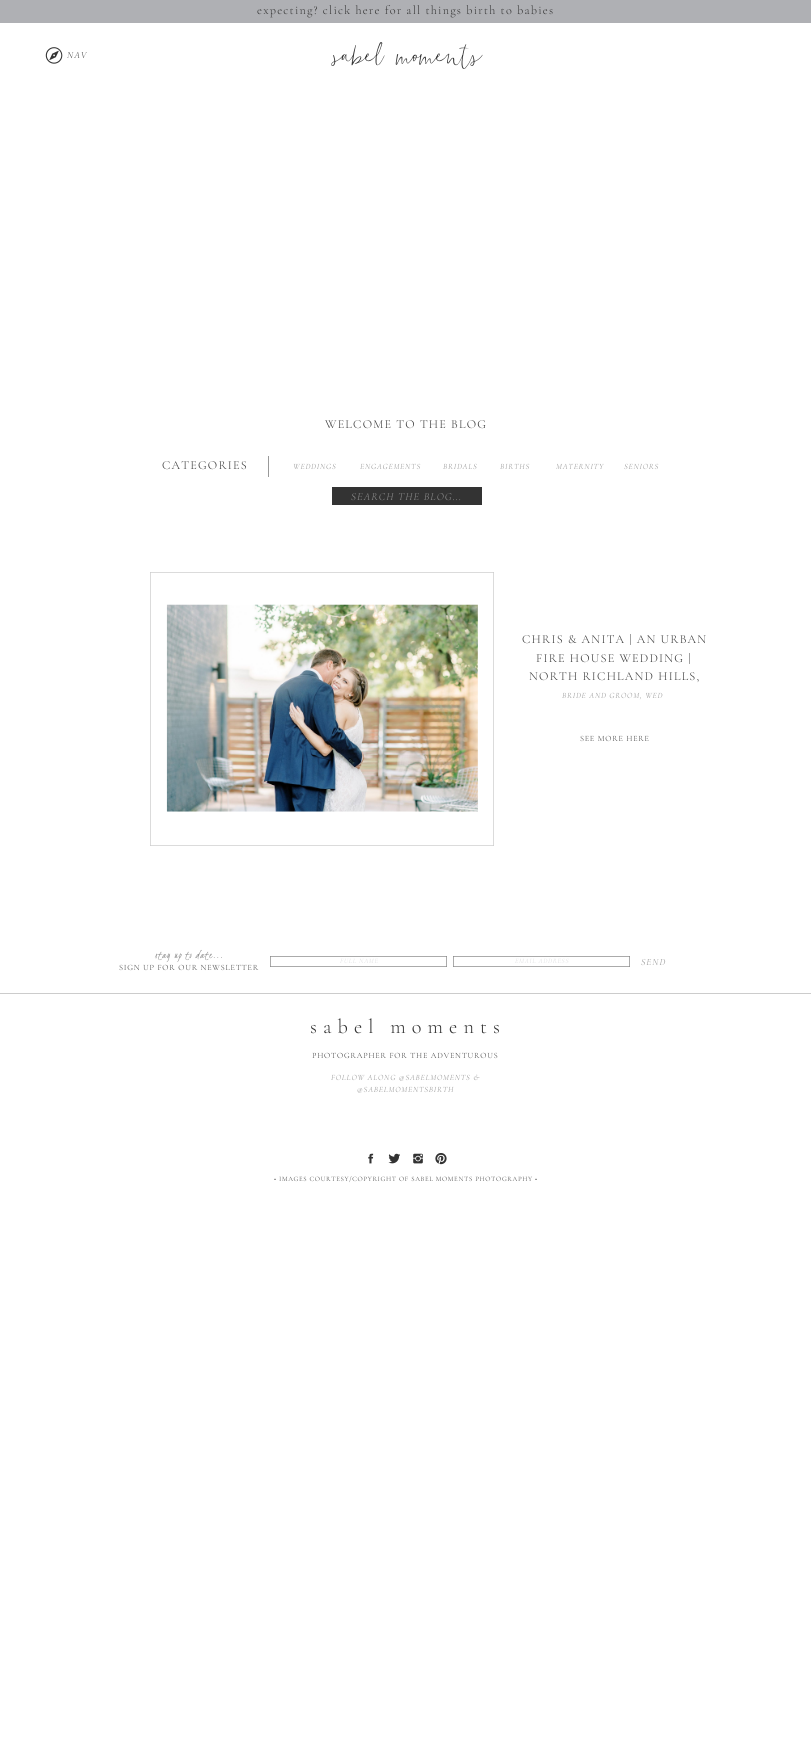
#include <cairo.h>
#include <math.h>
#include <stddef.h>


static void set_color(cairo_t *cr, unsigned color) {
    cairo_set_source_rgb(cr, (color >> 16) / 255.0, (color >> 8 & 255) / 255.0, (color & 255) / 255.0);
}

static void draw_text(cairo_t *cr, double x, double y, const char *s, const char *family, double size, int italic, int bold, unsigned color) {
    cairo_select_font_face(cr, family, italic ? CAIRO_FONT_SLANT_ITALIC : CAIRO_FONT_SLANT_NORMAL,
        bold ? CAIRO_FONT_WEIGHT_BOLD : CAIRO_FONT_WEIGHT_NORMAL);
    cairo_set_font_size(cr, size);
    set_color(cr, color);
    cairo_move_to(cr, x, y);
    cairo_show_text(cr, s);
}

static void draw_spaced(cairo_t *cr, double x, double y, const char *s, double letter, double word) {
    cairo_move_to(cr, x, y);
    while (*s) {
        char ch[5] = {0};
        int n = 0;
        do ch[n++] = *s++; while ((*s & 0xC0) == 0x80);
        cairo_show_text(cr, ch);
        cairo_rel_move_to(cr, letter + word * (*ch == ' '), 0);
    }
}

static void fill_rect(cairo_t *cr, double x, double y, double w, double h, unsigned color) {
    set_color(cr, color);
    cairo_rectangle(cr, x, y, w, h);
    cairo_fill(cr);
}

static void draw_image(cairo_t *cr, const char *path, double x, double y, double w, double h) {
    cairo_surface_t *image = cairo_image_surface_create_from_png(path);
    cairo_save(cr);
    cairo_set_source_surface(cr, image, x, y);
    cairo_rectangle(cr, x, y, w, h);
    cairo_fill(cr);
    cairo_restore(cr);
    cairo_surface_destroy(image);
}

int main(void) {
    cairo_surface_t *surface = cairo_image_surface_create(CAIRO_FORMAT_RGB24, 811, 1738);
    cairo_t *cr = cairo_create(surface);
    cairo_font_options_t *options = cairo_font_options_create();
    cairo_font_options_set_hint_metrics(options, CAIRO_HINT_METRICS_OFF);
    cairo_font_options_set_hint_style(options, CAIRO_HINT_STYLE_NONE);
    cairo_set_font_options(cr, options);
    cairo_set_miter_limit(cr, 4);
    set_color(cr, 0xFFFFFF);
    cairo_paint(cr);
    fill_rect(cr, 0, 0, 811, 23, 0xAFB0B4);
    cairo_select_font_face(cr, "Cormorant Garamond Light", CAIRO_FONT_SLANT_NORMAL, CAIRO_FONT_WEIGHT_NORMAL);
    cairo_set_font_size(cr, 12.2);
    set_color(cr, 0x333333);
    draw_spaced(cr, 257, 14, "expecting? click here for all things birth to babies", 1.22, 0);
    draw_image(cr, "assets/img1.png", 45, 47, 18, 17);
    cairo_select_font_face(cr, "Cormorant Garamond Light", CAIRO_FONT_SLANT_ITALIC, CAIRO_FONT_WEIGHT_NORMAL);
    cairo_set_font_size(cr, 9.5);
    draw_spaced(cr, 67, 58, "NAV", 1, 0);
    draw_text(cr, 332, 62, "sabel moments", "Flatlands", 44, 0, 0, 0x333333);
    cairo_select_font_face(cr, "Cormorant Garamond Light", CAIRO_FONT_SLANT_NORMAL, CAIRO_FONT_WEIGHT_NORMAL);
    cairo_set_font_size(cr, 12.2);
    draw_spaced(cr, 325, 428, "WELCOME TO THE BLOG", 1.22, 0);
    draw_spaced(cr, 162, 469, "CATEGORIES", 1.22, 0);
    fill_rect(cr, 268, 456, 1, 21, 0x999999);
    cairo_select_font_face(cr, "Cormorant Garamond Light", CAIRO_FONT_SLANT_ITALIC, CAIRO_FONT_WEIGHT_NORMAL);
    cairo_set_font_size(cr, 8.1);
    set_color(cr, 0x888888);
    draw_spaced(cr, 293, 469, "WEDDINGS", 0.8, 0);
    draw_spaced(cr, 360, 469, "ENGAGEMENTS", 0.8, 0);
    draw_spaced(cr, 443, 469, "BRIDALS", 0.8, 0);
    draw_spaced(cr, 500, 469, "BIRTHS", 0.8, 0);
    draw_spaced(cr, 556, 469, "MATERNITY", 0.8, 0);
    draw_spaced(cr, 624, 469, "SENIORS", 0.8, 0);
    fill_rect(cr, 332, 487, 150, 18, 0x333333);
    cairo_set_font_size(cr, 10.75);
    set_color(cr, 0x999999);
    draw_spaced(cr, 351, 500, "SEARCH THE BLOG...", 1.1, 0);
    cairo_rectangle(cr, 150.35, 572.35, 343.3, 273.3);
    set_color(cr, 0xCCCCCC);
    cairo_set_line_width(cr, 0.7);
    cairo_stroke(cr);
    draw_image(cr, "assets/img2.png", 166, 604, 312, 208);
    cairo_select_font_face(cr, "Cormorant Garamond Light", CAIRO_FONT_SLANT_NORMAL, CAIRO_FONT_WEIGHT_NORMAL);
    cairo_set_font_size(cr, 12.2);
    set_color(cr, 0x333333);
    draw_spaced(cr, 522, 643, "CHRIS & ANITA | AN URBAN", 1.22, 0);
    draw_spaced(cr, 536, 662, "FIRE HOUSE WEDDING |", 1.22, 0);
    draw_spaced(cr, 529, 680, "NORTH RICHLAND HILLS,", 1.22, 0);
    cairo_select_font_face(cr, "Cormorant Garamond Light", CAIRO_FONT_SLANT_ITALIC, CAIRO_FONT_WEIGHT_NORMAL);
    cairo_set_font_size(cr, 8.1);
    set_color(cr, 0x888888);
    draw_spaced(cr, 562, 698, "BRIDE AND GROOM, WED", 0.8, 0);
    cairo_select_font_face(cr, "Cormorant Garamond Light", CAIRO_FONT_SLANT_NORMAL, CAIRO_FONT_WEIGHT_NORMAL);
    set_color(cr, 0x333333);
    draw_spaced(cr, 580, 741, "SEE MORE HERE", 0.8, 0);
    cairo_select_font_face(cr, "Kristi", CAIRO_FONT_SLANT_NORMAL, CAIRO_FONT_WEIGHT_NORMAL);
    cairo_set_font_size(cr, 10.75);
    set_color(cr, 0x888888);
    draw_spaced(cr, 155, 958, "stay up to date...", 1.1, -0.5);
    cairo_select_font_face(cr, "Cormorant Garamond Light", CAIRO_FONT_SLANT_NORMAL, CAIRO_FONT_WEIGHT_NORMAL);
    cairo_set_font_size(cr, 8.1);
    set_color(cr, 0x333333);
    draw_spaced(cr, 119, 970, "SIGN UP FOR OUR NEWSLETTER", 0.8, 0);
    fill_rect(cr, 0, 993, 811, 1, 0xCCCCCC);
    cairo_rectangle(cr, 270.35, 956.35, 176.3, 10.3);
    set_color(cr, 0x888888);
    cairo_stroke(cr);
    cairo_rectangle(cr, 453.35, 956.35, 176.3, 10.3);
    cairo_stroke(cr);
    cairo_select_font_face(cr, "Cormorant Garamond Light", CAIRO_FONT_SLANT_ITALIC, CAIRO_FONT_WEIGHT_NORMAL);
    cairo_set_font_size(cr, 6.75);
    set_color(cr, 0xD7D8DA);
    draw_spaced(cr, 340, 963, "FULL NAME", 0.68, 0);
    draw_spaced(cr, 515, 963, "EMAIL ADDRESS", 0.68, 0);
    cairo_set_font_size(cr, 9.5);
    set_color(cr, 0x888888);
    draw_spaced(cr, 641, 965, "SEND", 1, 0);
    cairo_select_font_face(cr, "Cormorant Garamond Light", CAIRO_FONT_SLANT_NORMAL, CAIRO_FONT_WEIGHT_NORMAL);
    cairo_set_font_size(cr, 20.25);
    set_color(cr, 0x333333);
    draw_spaced(cr, 310, 1033, "sabel moments", 6.1, 0);
    cairo_set_font_size(cr, 8.1);
    draw_spaced(cr, 312, 1058, "PHOTOGRAPHER FOR THE ADVENTUROUS", 0.8, 0);
    cairo_select_font_face(cr, "Cormorant Garamond Light", CAIRO_FONT_SLANT_ITALIC, CAIRO_FONT_WEIGHT_NORMAL);
    set_color(cr, 0x888888);
    draw_spaced(cr, 331, 1080, "FOLLOW ALONG @SABELMOMENTS &", 0.8, 0);
    draw_spaced(cr, 357, 1092, "@SABELMOMENTSBIRTH", 0.8, 0);
    draw_image(cr, "assets/img3.png", 368, 1153, 6, 11);
    draw_image(cr, "assets/img4.png", 388, 1153, 12, 11);
    draw_image(cr, "assets/img5.png", 413, 1153, 10, 11);
    draw_image(cr, "assets/img6.png", 435, 1153, 12, 12);
    cairo_select_font_face(cr, "Cormorant Garamond Light", CAIRO_FONT_SLANT_NORMAL, CAIRO_FONT_WEIGHT_NORMAL);
    cairo_set_font_size(cr, 6.75);
    set_color(cr, 0x333333);
    draw_spaced(cr, 274, 1181, "• IMAGES COURTESY/COPYRIGHT OF SABEL MOMENTS PHOTOGRAPHY •", 0.68, 0);
    cairo_surface_write_to_png(surface, "output.png");
    cairo_font_options_destroy(options);
    cairo_destroy(cr);
    cairo_surface_destroy(surface);
    return 0;
}
